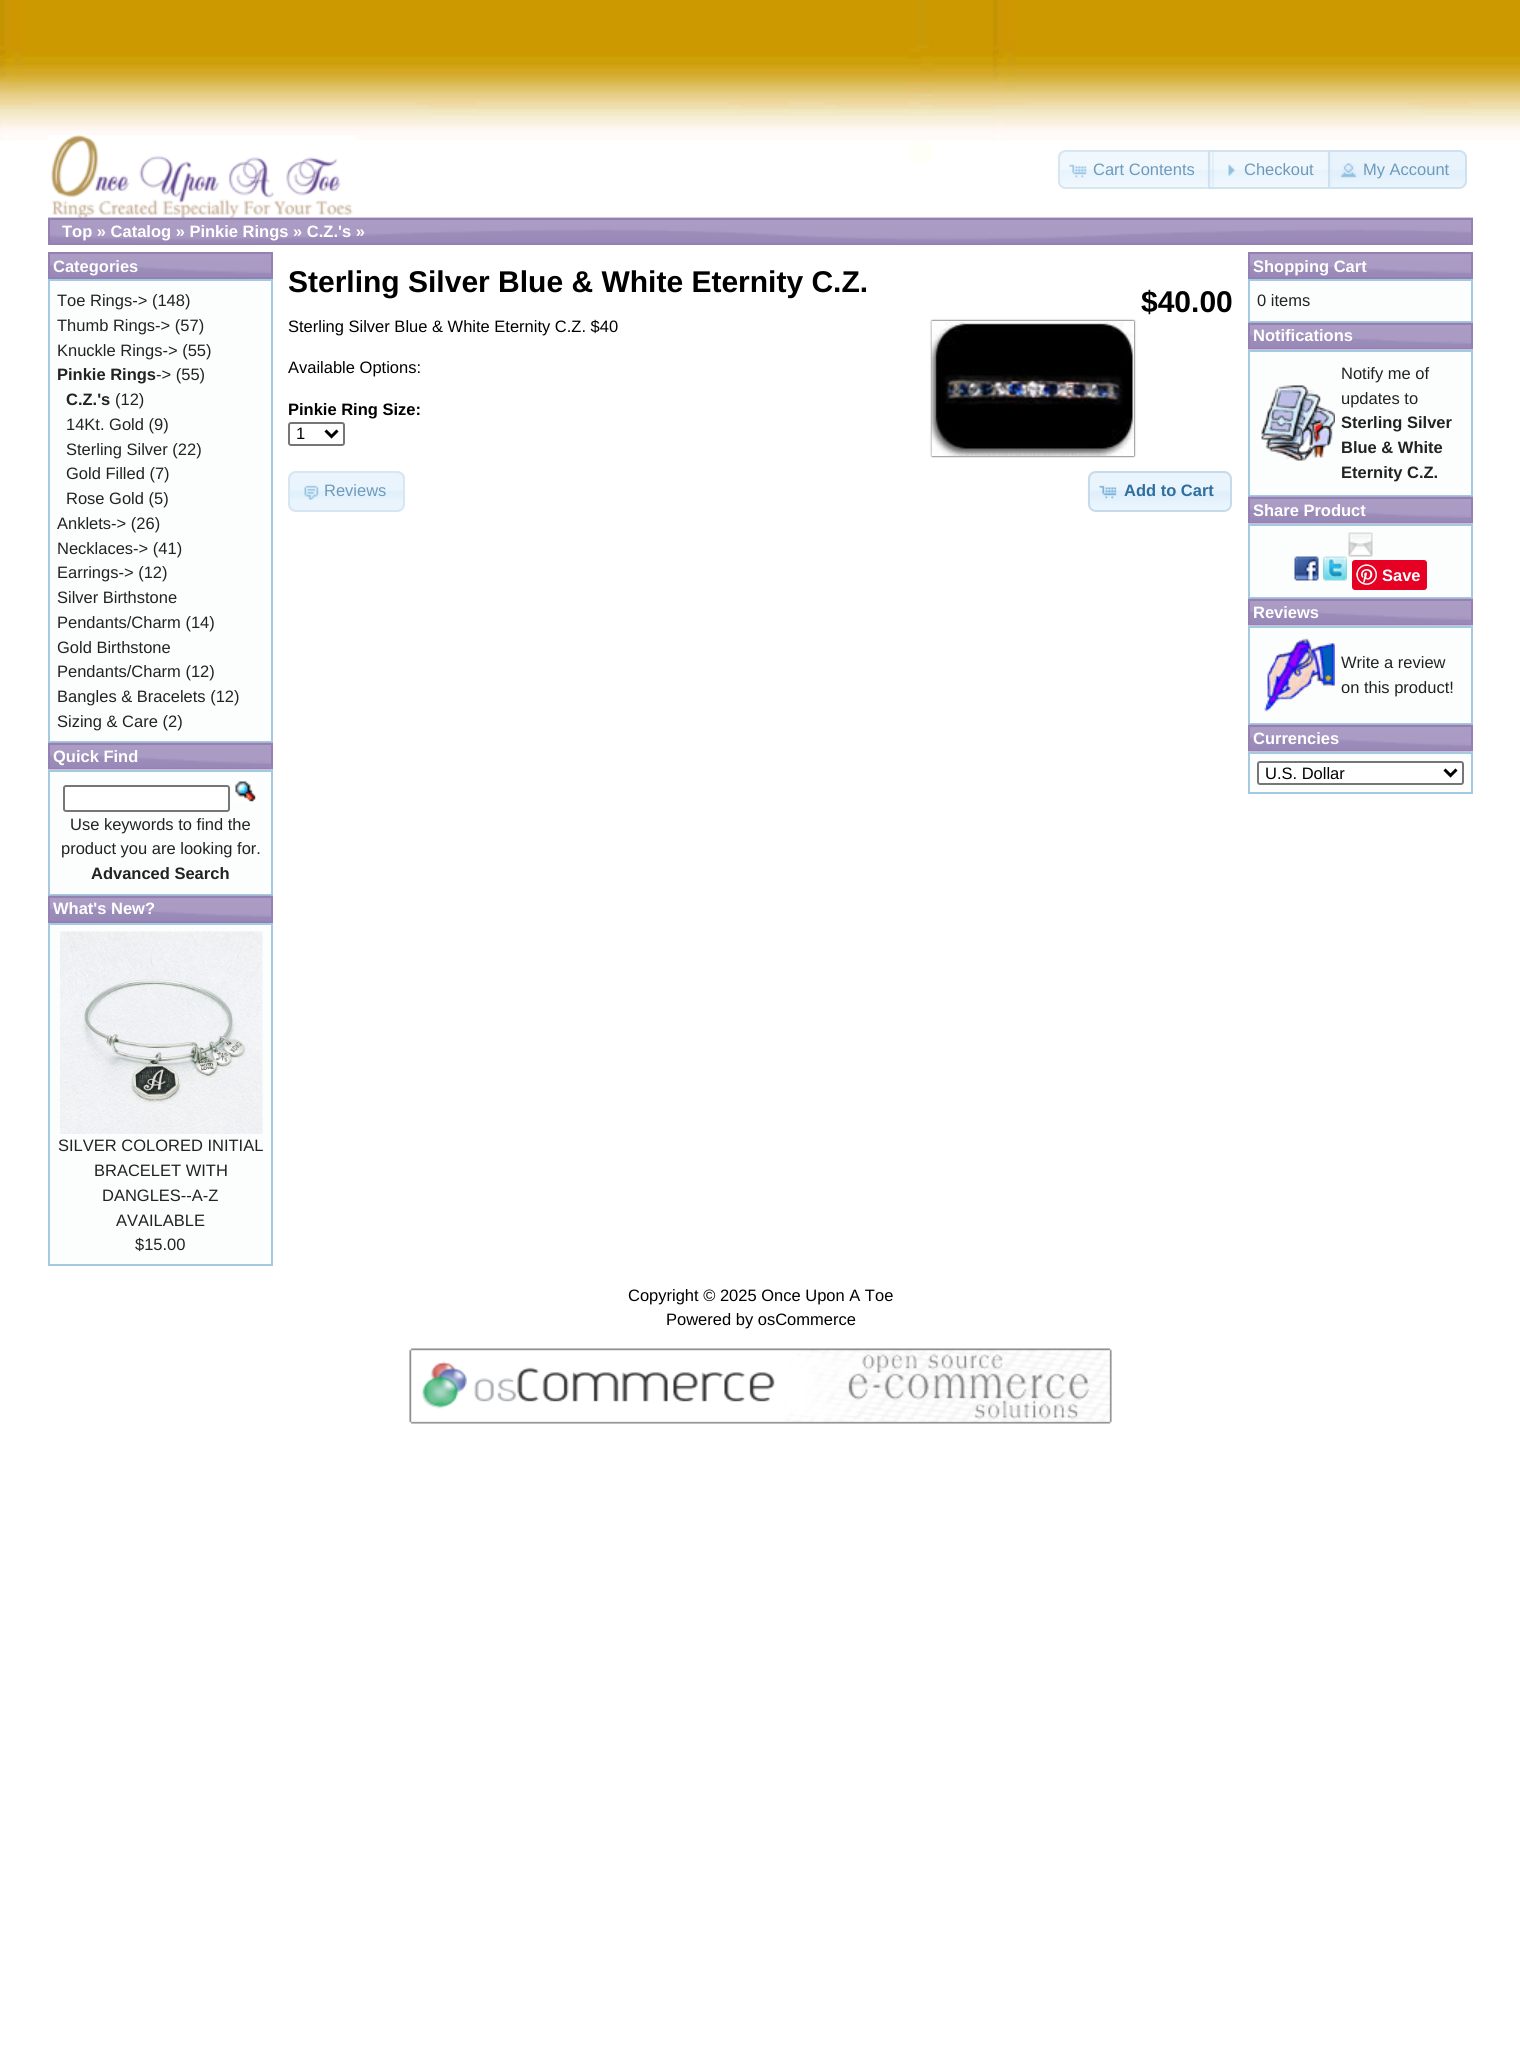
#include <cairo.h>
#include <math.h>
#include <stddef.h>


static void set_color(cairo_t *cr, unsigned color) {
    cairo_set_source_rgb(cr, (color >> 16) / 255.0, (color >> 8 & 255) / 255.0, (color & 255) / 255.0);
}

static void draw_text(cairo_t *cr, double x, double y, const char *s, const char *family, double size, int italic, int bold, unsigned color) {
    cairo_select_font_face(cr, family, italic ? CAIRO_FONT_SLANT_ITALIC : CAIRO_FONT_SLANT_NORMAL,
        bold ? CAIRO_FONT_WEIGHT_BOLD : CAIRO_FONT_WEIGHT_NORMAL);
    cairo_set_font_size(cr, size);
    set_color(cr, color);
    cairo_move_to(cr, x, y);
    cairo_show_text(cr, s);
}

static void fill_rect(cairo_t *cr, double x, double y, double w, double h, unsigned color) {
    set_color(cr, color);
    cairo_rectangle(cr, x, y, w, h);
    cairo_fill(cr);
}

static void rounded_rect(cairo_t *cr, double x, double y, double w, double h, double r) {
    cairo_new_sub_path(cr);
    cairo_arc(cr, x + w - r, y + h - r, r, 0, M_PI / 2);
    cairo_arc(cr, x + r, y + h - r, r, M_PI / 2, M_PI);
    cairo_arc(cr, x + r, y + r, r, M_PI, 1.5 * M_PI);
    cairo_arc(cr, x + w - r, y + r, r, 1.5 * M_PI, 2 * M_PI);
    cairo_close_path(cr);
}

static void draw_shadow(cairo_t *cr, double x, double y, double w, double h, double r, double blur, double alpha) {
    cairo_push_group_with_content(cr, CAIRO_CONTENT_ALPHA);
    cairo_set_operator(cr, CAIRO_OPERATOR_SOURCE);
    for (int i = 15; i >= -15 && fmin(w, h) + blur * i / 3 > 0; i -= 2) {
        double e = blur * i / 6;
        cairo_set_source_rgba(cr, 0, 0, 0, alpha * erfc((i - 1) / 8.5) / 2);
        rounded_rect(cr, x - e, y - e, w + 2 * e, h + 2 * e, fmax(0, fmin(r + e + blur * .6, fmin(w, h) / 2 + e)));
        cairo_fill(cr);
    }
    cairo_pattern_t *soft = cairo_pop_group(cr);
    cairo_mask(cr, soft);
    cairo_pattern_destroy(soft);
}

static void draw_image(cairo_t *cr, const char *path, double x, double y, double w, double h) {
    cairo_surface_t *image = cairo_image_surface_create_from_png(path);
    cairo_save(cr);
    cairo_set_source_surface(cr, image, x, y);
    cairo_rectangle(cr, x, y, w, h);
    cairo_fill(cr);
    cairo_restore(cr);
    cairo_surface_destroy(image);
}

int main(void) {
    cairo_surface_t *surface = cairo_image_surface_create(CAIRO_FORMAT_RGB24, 1520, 2069);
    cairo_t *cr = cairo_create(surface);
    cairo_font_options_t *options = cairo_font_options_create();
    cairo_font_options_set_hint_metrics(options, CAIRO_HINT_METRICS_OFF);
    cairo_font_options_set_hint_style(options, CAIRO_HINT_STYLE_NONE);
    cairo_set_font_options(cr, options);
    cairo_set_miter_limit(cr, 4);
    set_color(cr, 0xFFFFFF);
    cairo_paint(cr);
    draw_image(cr, "assets/img1.png", 0, 0, 1520, 162);
    draw_image(cr, "assets/img2.png", 48, 135, 308, 83);
    draw_image(cr, "assets/img3.png", 1057, 150, 155, 39);
    cairo_new_path(cr);
    cairo_move_to(cr, 1066, 151);
    cairo_line_to(cr, 1213, 151);
    cairo_line_to(cr, 1213, 188);
    cairo_line_to(cr, 1066, 188);
    cairo_curve_to(cr, 1062, 188, 1059, 185, 1059, 181);
    cairo_line_to(cr, 1059, 158);
    cairo_curve_to(cr, 1059, 154, 1062, 151, 1066, 151);
    cairo_close_path(cr);
    set_color(cr, 0xD6E6F2);
    cairo_stroke(cr);
    draw_image(cr, "assets/img4.png", 1069, 164, 18, 14);
    draw_text(cr, 1093, 175, "Cart Contents", "Liberation Sans", 16.5, 0, 0, 0x6D9ABB);
    draw_image(cr, "assets/img5.png", 1207, 150, 125, 39);
    cairo_rectangle(cr, 1209, 151, 122, 37);
    cairo_set_source_rgba(cr, 0.773, 0.859, 0.925, 0.7);
    cairo_stroke(cr);
    draw_image(cr, "assets/img6.png", 1228, 164, 7, 12);
    draw_text(cr, 1244, 175, "Checkout", "Liberation Sans", 16.5, 0, 0, 0x6D9ABB);
    cairo_set_source_rgba(cr, 0.875, 0.937, 0.988, 0.7);
    cairo_new_path(cr);
    cairo_move_to(cr, 1328, 150);
    cairo_line_to(cr, 1459, 150);
    cairo_curve_to(cr, 1463.5, 150, 1467, 153.5, 1467, 158);
    cairo_line_to(cr, 1467, 181);
    cairo_curve_to(cr, 1467, 185.5, 1463.5, 189, 1459, 189);
    cairo_line_to(cr, 1328, 189);
    cairo_close_path(cr);
    cairo_fill(cr);
    draw_image(cr, "assets/img7.png", 1327, 150, 140, 39);
    cairo_new_path(cr);
    cairo_move_to(cr, 1329, 151);
    cairo_line_to(cr, 1459, 151);
    cairo_curve_to(cr, 1463, 151, 1466, 154, 1466, 158);
    cairo_line_to(cr, 1466, 181);
    cairo_curve_to(cr, 1466, 185, 1463, 188, 1459, 188);
    cairo_line_to(cr, 1329, 188);
    cairo_close_path(cr);
    cairo_set_source_rgba(cr, 0.773, 0.859, 0.925, 0.7);
    cairo_stroke(cr);
    draw_image(cr, "assets/img8.png", 1340, 163, 17, 15);
    draw_text(cr, 1363, 175, "My Account", "Liberation Sans", 16.5, 0, 0, 0x6D9ABB);
    draw_image(cr, "assets/img9.png", 48, 217, 1425, 26);
    cairo_rectangle(cr, 49, 219, 1423, 25);
    set_color(cr, 0x9480B2);
    cairo_stroke(cr);
    draw_text(cr, 62, 237, "Top » Catalog » Pinkie Rings » C.Z.'s »", "Liberation Sans", 16.5, 0, 1, 0xFFFFFF);
    draw_image(cr, "assets/img10.png", 50, 254, 221, 23);
    cairo_rectangle(cr, 49, 253, 223, 25);
    set_color(cr, 0x9480B2);
    cairo_stroke(cr);
    draw_text(cr, 53, 272, "Categories", "Liberation Sans", 16.5, 0, 1, 0xFFFFFF);
    set_color(cr, 0xFCFDFD);
    cairo_rectangle(cr, 49, 280, 223, 462);
    cairo_fill_preserve(cr);
    set_color(cr, 0xA6C9E2);
    cairo_stroke(cr);
    draw_text(cr, 57, 306, "Toe Rings-> (148)", "Liberation Sans", 16.5, 0, 0, 0x222222);
    draw_text(cr, 57, 331, "Thumb Rings-> (57)", "Liberation Sans", 16.5, 0, 0, 0x222222);
    draw_text(cr, 57, 356, "Knuckle Rings-> (55)", "Liberation Sans", 16.5, 0, 0, 0x222222);
    draw_text(cr, 57, 380, "Pinkie Rings", "Liberation Sans", 16.5, 0, 1, 0x222222);
    draw_text(cr, 156, 380, "-> (55)", "Liberation Sans", 16.5, 0, 0, 0x222222);
    draw_text(cr, 66, 405, "C.Z.'s", "Liberation Sans", 16.5, 0, 1, 0x222222);
    draw_text(cr, 115, 405, "(12)", "Liberation Sans", 16.5, 0, 0, 0x222222);
    draw_text(cr, 66, 430, "14Kt. Gold (9)", "Liberation Sans", 16.5, 0, 0, 0x222222);
    draw_text(cr, 66, 455, "Sterling Silver (22)", "Liberation Sans", 16.5, 0, 0, 0x222222);
    draw_text(cr, 66, 479, "Gold Filled (7)", "Liberation Sans", 16.5, 0, 0, 0x222222);
    draw_text(cr, 66, 504, "Rose Gold (5)", "Liberation Sans", 16.5, 0, 0, 0x222222);
    draw_text(cr, 57, 529, "Anklets-> (26)", "Liberation Sans", 16.5, 0, 0, 0x222222);
    draw_text(cr, 57, 554, "Necklaces-> (41)", "Liberation Sans", 16.5, 0, 0, 0x222222);
    draw_text(cr, 57, 578, "Earrings-> (12)", "Liberation Sans", 16.5, 0, 0, 0x222222);
    draw_text(cr, 57, 603, "Silver Birthstone", "Liberation Sans", 16.5, 0, 0, 0x222222);
    draw_text(cr, 57, 628, "Pendants/Charm (14)", "Liberation Sans", 16.5, 0, 0, 0x222222);
    draw_text(cr, 57, 653, "Gold Birthstone", "Liberation Sans", 16.5, 0, 0, 0x222222);
    draw_text(cr, 57, 677, "Pendants/Charm (12)", "Liberation Sans", 16.5, 0, 0, 0x222222);
    draw_text(cr, 57, 702, "Bangles & Bracelets (12)", "Liberation Sans", 16.5, 0, 0, 0x222222);
    draw_text(cr, 57, 727, "Sizing & Care (2)", "Liberation Sans", 16.5, 0, 0, 0x222222);
    draw_image(cr, "assets/img11.png", 48, 742, 225, 26);
    cairo_rectangle(cr, 49, 744, 223, 25);
    set_color(cr, 0x9480B2);
    cairo_stroke(cr);
    draw_text(cr, 53, 762, "Quick Find", "Liberation Sans", 16.5, 0, 1, 0xFFFFFF);
    set_color(cr, 0xFCFDFD);
    cairo_rectangle(cr, 49, 771, 223, 124);
    cairo_fill_preserve(cr);
    set_color(cr, 0xA6C9E2);
    cairo_stroke(cr);
    fill_rect(cr, 48, 769, 225, 1, 0xC8BFD8);
    set_color(cr, 0xFFFFFF);
    rounded_rect(cr, 64, 786, 165, 25, 2);
    cairo_fill_preserve(cr);
    set_color(cr, 0x767676);
    cairo_stroke(cr);
    draw_image(cr, "assets/img12.png", 235, 781, 21, 21);
    draw_text(cr, 70, 830, "Use keywords to find the", "Liberation Sans", 16.5, 0, 0, 0x222222);
    draw_text(cr, 61, 854, "product you are looking for.", "Liberation Sans", 16.5, 0, 0, 0x222222);
    draw_text(cr, 91, 879, "Advanced Search", "Liberation Sans", 16.5, 0, 1, 0x222222);
    draw_image(cr, "assets/img11.png", 48, 895, 225, 26);
    cairo_rectangle(cr, 49, 897, 223, 25);
    set_color(cr, 0x9480B2);
    cairo_stroke(cr);
    draw_text(cr, 53, 914, "What's New?", "Liberation Sans", 16.5, 0, 1, 0xFFFFFF);
    set_color(cr, 0xFCFDFD);
    cairo_rectangle(cr, 49, 924, 223, 341);
    cairo_fill_preserve(cr);
    set_color(cr, 0xA6C9E2);
    cairo_stroke(cr);
    draw_image(cr, "assets/img13.png", 60, 931, 203, 203);
    draw_text(cr, 58, 1151, "SILVER COLORED INITIAL", "Liberation Sans", 16.5, 0, 0, 0x222222);
    draw_text(cr, 94, 1176, "BRACELET WITH", "Liberation Sans", 16.5, 0, 0, 0x222222);
    draw_text(cr, 102, 1201, "DANGLES--A-Z", "Liberation Sans", 16.5, 0, 0, 0x222222);
    draw_text(cr, 116, 1226, "AVAILABLE", "Liberation Sans", 16.5, 0, 0, 0x222222);
    draw_text(cr, 135, 1250, "$15.00", "Liberation Sans", 16.5, 0, 0, 0x222222);
    draw_text(cr, 288, 292, "Sterling Silver Blue & White Eternity C.Z.", "Liberation Sans", 30, 0, 1, 0x000000);
    draw_text(cr, 1141, 312, "$40.00", "Liberation Sans", 30, 0, 1, 0x000000);
    draw_text(cr, 288, 332, "Sterling Silver Blue & White Eternity C.Z. $40", "Liberation Sans", 16.5, 0, 0, 0x000000);
    set_color(cr, 0x000000);
    draw_shadow(cr, 932, 321, 202, 135, 0, 1, 1);
    draw_image(cr, "assets/img14.png", 931, 321, 203, 135);
    draw_text(cr, 288, 373, "Available Options:", "Liberation Sans", 16.5, 0, 0, 0x000000);
    draw_text(cr, 288, 415, "Pinkie Ring Size:", "Liberation Sans", 16.5, 0, 1, 0x000000);
    rounded_rect(cr, 289, 423, 55, 22, 2);
    set_color(cr, 0x767676);
    cairo_stroke(cr);
    cairo_new_path(cr);
    cairo_move_to(cr, 325.5, 430.5);
    cairo_line_to(cr, 331.5, 436.5);
    cairo_line_to(cr, 337.5, 430.5);
    set_color(cr, 0x000000);
    cairo_set_line_width(cr, 3);
    cairo_stroke(cr);
    draw_text(cr, 296, 439, "1", "Liberation Sans", 16.5, 0, 0, 0x000000);
    set_color(cr, 0xE9F4FD);
    rounded_rect(cr, 288, 471, 117, 41, 8);
    cairo_fill(cr);
    draw_image(cr, "assets/img15.png", 288, 471, 117, 28);
    rounded_rect(cr, 289, 472, 115, 39, 7);
    set_color(cr, 0xD6E6F2);
    cairo_set_line_width(cr, 2);
    cairo_stroke(cr);
    draw_image(cr, "assets/img16.png", 304, 485, 15, 15);
    draw_text(cr, 324, 496, "Reviews", "Liberation Sans", 16.5, 0, 0, 0x6D9ABB);
    draw_image(cr, "assets/img17.png", 1087, 471, 144, 41);
    rounded_rect(cr, 1089, 472, 142, 39, 7);
    set_color(cr, 0xC5DBEC);
    cairo_stroke(cr);
    draw_image(cr, "assets/img18.png", 1099, 485, 18, 14);
    draw_text(cr, 1124, 496, "Add to Cart", "Liberation Sans", 16.5, 0, 1, 0x2E6E9E);
    draw_image(cr, "assets/img19.png", 1250, 254, 221, 23);
    cairo_rectangle(cr, 1249, 253, 223, 25);
    set_color(cr, 0x9480B2);
    cairo_stroke(cr);
    draw_text(cr, 1253, 272, "Shopping Cart", "Liberation Sans", 16.5, 0, 1, 0xFFFFFF);
    set_color(cr, 0xFCFDFD);
    cairo_rectangle(cr, 1249, 280, 223, 42);
    cairo_fill_preserve(cr);
    set_color(cr, 0xA6C9E2);
    cairo_stroke(cr);
    draw_text(cr, 1257, 306, "0 items", "Liberation Sans", 16.5, 0, 0, 0x222222);
    draw_image(cr, "assets/img20.png", 1248, 322, 225, 26);
    cairo_rectangle(cr, 1249, 324, 223, 25);
    set_color(cr, 0x9480B2);
    cairo_stroke(cr);
    draw_text(cr, 1253, 341, "Notifications", "Liberation Sans", 16.5, 0, 1, 0xFFFFFF);
    set_color(cr, 0xFCFDFD);
    cairo_rectangle(cr, 1249, 351, 223, 145);
    cairo_fill_preserve(cr);
    set_color(cr, 0xA6C9E2);
    cairo_stroke(cr);
    fill_rect(cr, 1248, 349, 225, 1, 0xC8BFD8);
    draw_image(cr, "assets/img21.png", 1261, 385, 74, 76);
    draw_text(cr, 1341, 379, "Notify me of", "Liberation Sans", 16.5, 0, 0, 0x222222);
    draw_text(cr, 1341, 404, "updates to", "Liberation Sans", 16.5, 0, 0, 0x222222);
    draw_text(cr, 1341, 428, "Sterling Silver", "Liberation Sans", 16.5, 0, 1, 0x222222);
    draw_text(cr, 1341, 453, "Blue & White", "Liberation Sans", 16.5, 0, 1, 0x222222);
    draw_text(cr, 1341, 478, "Eternity C.Z.", "Liberation Sans", 16.5, 0, 1, 0x222222);
    draw_image(cr, "assets/img20.png", 1248, 496, 225, 26);
    cairo_rectangle(cr, 1249, 498, 223, 25);
    set_color(cr, 0x9480B2);
    cairo_stroke(cr);
    draw_text(cr, 1253, 516, "Share Product", "Liberation Sans", 16.5, 0, 1, 0xFFFFFF);
    set_color(cr, 0xFCFDFD);
    cairo_rectangle(cr, 1249, 525, 223, 73);
    cairo_fill_preserve(cr);
    set_color(cr, 0xA6C9E2);
    cairo_stroke(cr);
    fill_rect(cr, 1248, 523, 225, 1, 0xC9BFD8);
    draw_image(cr, "assets/img22.png", 1348, 532, 25, 25);
    draw_image(cr, "assets/img23.png", 1294, 556, 25, 25);
    draw_image(cr, "assets/img24.png", 1323, 556, 24, 25);
    set_color(cr, 0xE60023);
    rounded_rect(cr, 1352, 560, 75, 30, 3);
    cairo_fill(cr);
    draw_image(cr, "assets/img25.png", 1356, 564, 21, 21);
    draw_text(cr, 1382, 581, "Save", "Liberation Sans", 16.5, 0, 1, 0xFFFFFF);
    draw_image(cr, "assets/img20.png", 1248, 598, 225, 26);
    cairo_rectangle(cr, 1249, 600, 223, 25);
    set_color(cr, 0x9480B2);
    cairo_stroke(cr);
    draw_text(cr, 1253, 618, "Reviews", "Liberation Sans", 16.5, 0, 1, 0xFFFFFF);
    set_color(cr, 0xFCFDFD);
    cairo_rectangle(cr, 1249, 627, 223, 97);
    cairo_fill_preserve(cr);
    set_color(cr, 0xA6C9E2);
    cairo_stroke(cr);
    fill_rect(cr, 1248, 625, 225, 1, 0xC8BFD8);
    draw_image(cr, "assets/img26.png", 1264, 638, 71, 74);
    draw_text(cr, 1341, 668, "Write a review", "Liberation Sans", 16.5, 0, 0, 0x222222);
    draw_text(cr, 1341, 693, "on this product!", "Liberation Sans", 16.5, 0, 0, 0x222222);
    draw_image(cr, "assets/img20.png", 1248, 724, 225, 26);
    cairo_rectangle(cr, 1249, 726, 223, 25);
    set_color(cr, 0x9480B2);
    cairo_stroke(cr);
    draw_text(cr, 1253, 744, "Currencies", "Liberation Sans", 16.5, 0, 1, 0xFFFFFF);
    set_color(cr, 0xFCFDFD);
    cairo_rectangle(cr, 1249, 753, 223, 40);
    cairo_fill_preserve(cr);
    set_color(cr, 0xA6C9E2);
    cairo_stroke(cr);
    fill_rect(cr, 1248, 751, 225, 1, 0xC9BFD8);
    set_color(cr, 0xFFFFFF);
    rounded_rect(cr, 1258, 762, 205, 22, 2);
    cairo_fill_preserve(cr);
    set_color(cr, 0x767676);
    cairo_stroke(cr);
    cairo_new_path(cr);
    cairo_move_to(cr, 1444.5, 769.5);
    cairo_line_to(cr, 1450.5, 775.5);
    cairo_line_to(cr, 1456.5, 769.5);
    set_color(cr, 0x000000);
    cairo_set_line_width(cr, 3);
    cairo_stroke(cr);
    draw_text(cr, 1265, 779, "U.S. Dollar", "Liberation Sans", 16.5, 0, 0, 0x000000);
    draw_text(cr, 628, 1301, "Copyright © 2025 Once Upon A Toe", "Liberation Sans", 16.5, 0, 0, 0x000000);
    draw_text(cr, 666, 1325, "Powered by osCommerce", "Liberation Sans", 16.5, 0, 0, 0x000000);
    draw_image(cr, "assets/img27.png", 409, 1348, 703, 76);
    cairo_surface_write_to_png(surface, "output.png");
    cairo_font_options_destroy(options);
    cairo_destroy(cr);
    cairo_surface_destroy(surface);
    return 0;
}
